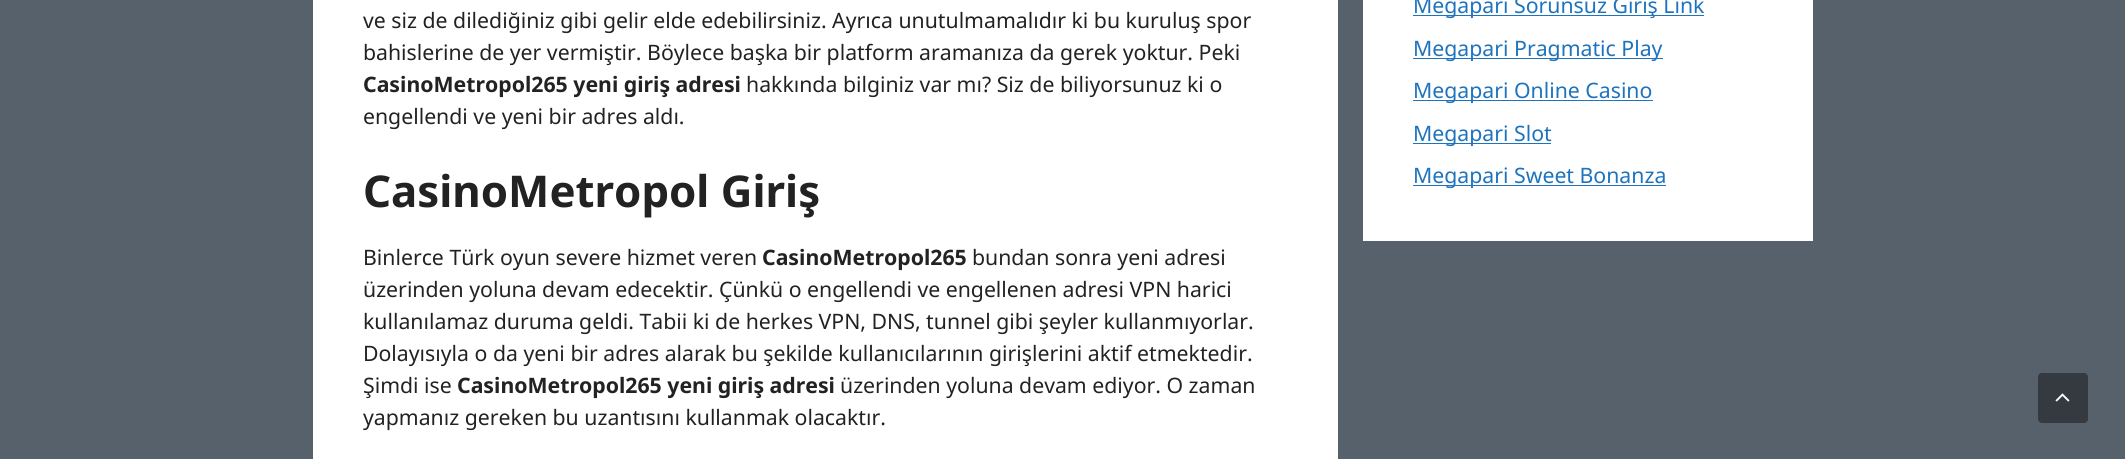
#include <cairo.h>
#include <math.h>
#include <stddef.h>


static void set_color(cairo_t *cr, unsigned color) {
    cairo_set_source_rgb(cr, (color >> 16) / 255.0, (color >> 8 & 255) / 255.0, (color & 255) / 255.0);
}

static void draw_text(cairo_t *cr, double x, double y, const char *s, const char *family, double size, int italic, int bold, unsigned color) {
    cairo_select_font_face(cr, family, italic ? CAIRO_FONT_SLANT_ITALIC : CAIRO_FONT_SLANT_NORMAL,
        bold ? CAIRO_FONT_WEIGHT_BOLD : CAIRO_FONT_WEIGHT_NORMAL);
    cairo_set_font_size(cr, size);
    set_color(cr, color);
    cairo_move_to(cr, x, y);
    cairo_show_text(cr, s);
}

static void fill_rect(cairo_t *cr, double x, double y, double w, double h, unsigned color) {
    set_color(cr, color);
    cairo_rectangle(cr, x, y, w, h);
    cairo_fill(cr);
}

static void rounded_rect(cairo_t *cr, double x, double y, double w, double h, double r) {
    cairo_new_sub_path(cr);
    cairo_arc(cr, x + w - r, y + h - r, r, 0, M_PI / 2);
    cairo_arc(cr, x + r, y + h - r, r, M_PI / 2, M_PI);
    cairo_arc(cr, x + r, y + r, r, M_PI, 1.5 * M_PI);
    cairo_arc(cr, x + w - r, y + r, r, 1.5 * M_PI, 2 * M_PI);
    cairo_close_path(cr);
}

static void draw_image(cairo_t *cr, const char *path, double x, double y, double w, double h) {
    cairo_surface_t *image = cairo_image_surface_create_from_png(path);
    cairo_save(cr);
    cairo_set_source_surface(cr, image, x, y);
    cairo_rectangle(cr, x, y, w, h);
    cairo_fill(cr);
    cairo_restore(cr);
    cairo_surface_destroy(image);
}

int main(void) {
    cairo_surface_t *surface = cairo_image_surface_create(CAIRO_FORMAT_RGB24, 2125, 459);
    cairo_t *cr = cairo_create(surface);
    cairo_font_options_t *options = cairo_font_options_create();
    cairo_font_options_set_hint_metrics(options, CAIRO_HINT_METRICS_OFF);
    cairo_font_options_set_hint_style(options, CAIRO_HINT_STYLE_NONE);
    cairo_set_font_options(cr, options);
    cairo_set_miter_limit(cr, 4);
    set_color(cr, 0x56616B);
    cairo_paint(cr);
    fill_rect(cr, 313, 0, 1025, 459, 0xFFFFFF);
    draw_text(cr, 363, 28, "ve siz de dilediğiniz gibi gelir elde edebilirsiniz. Ayrıca unutulmamalıdır ki bu kuruluş spor", "Noto Sans", 21.25, 0, 0, 0x222222);
    draw_text(cr, 363, 60, "bahislerine de yer vermiştir. Böylece başka bir platform aramanıza da gerek yoktur. Peki", "Noto Sans", 21.25, 0, 0, 0x222222);
    draw_text(cr, 363, 92, "CasinoMetropol265 yeni giriş adresi", "Noto Sans", 21.25, 0, 1, 0x222222);
    draw_text(cr, 746, 92, "hakkında bilginiz var mı? Siz de biliyorsunuz ki o", "Noto Sans", 21.25, 0, 0, 0x222222);
    draw_text(cr, 363, 124, "engellendi ve yeni bir adres aldı.", "Noto Sans", 21.25, 0, 0, 0x222222);
    draw_text(cr, 363, 207, "CasinoMetropol Giriş", "Noto Sans", 43.75, 0, 1, 0x222222);
    draw_text(cr, 363, 265, "Binlerce Türk oyun severe hizmet veren", "Noto Sans", 21.25, 0, 0, 0x222222);
    draw_text(cr, 762, 265, "CasinoMetropol265", "Noto Sans", 21.25, 0, 1, 0x222222);
    draw_text(cr, 972, 265, "bundan sonra yeni adresi", "Noto Sans", 21.25, 0, 0, 0x222222);
    draw_text(cr, 363, 297, "üzerinden yoluna devam edecektir. Çünkü o engellendi ve engellenen adresi VPN harici", "Noto Sans", 21.25, 0, 0, 0x222222);
    draw_text(cr, 363, 329, "kullanılamaz duruma geldi. Tabii ki de herkes VPN, DNS, tunnel gibi şeyler kullanmıyorlar.", "Noto Sans", 21.25, 0, 0, 0x222222);
    draw_text(cr, 363, 361, "Dolayısıyla o da yeni bir adres alarak bu şekilde kullanıcılarının girişlerini aktif etmektedir.", "Noto Sans", 21.25, 0, 0, 0x222222);
    draw_text(cr, 363, 393, "Şimdi ise", "Noto Sans", 21.25, 0, 0, 0x222222);
    draw_text(cr, 457, 393, "CasinoMetropol265 yeni giriş adresi", "Noto Sans", 21.25, 0, 1, 0x222222);
    draw_text(cr, 840, 393, "üzerinden yoluna devam ediyor. O zaman", "Noto Sans", 21.25, 0, 0, 0x222222);
    draw_text(cr, 363, 425, "yapmanız gereken bu uzantısını kullanmak olacaktır.", "Noto Sans", 21.25, 0, 0, 0x222222);
    fill_rect(cr, 1363, 0, 450, 241, 0xFFFFFF);
    fill_rect(cr, 1413, 15, 291, 1, 0x1E73BE);
    draw_text(cr, 1413, 13, "Megapari Sorunsuz Giriş Link", "Noto Sans", 21.25, 0, 0, 0x1E73BE);
    fill_rect(cr, 1413, 58, 250, 1, 0x1E73BE);
    draw_text(cr, 1413, 56, "Megapari Pragmatic Play", "Noto Sans", 21.25, 0, 0, 0x1E73BE);
    fill_rect(cr, 1413, 100, 240, 1, 0x1E73BE);
    draw_text(cr, 1413, 98, "Megapari Online Casino", "Noto Sans", 21.25, 0, 0, 0x1E73BE);
    fill_rect(cr, 1413, 143, 138, 1, 0x1E73BE);
    draw_text(cr, 1413, 141, "Megapari Slot", "Noto Sans", 21.25, 0, 0, 0x1E73BE);
    fill_rect(cr, 1413, 185, 253, 1, 0x1E73BE);
    draw_text(cr, 1413, 183, "Megapari Sweet Bonanza", "Noto Sans", 21.25, 0, 0, 0x1E73BE);
    set_color(cr, 0x343A40);
    rounded_rect(cr, 2038, 373, 50, 50, 4);
    cairo_fill(cr);
    draw_image(cr, "assets/img1.png", 2055, 393, 15, 9);
    cairo_surface_write_to_png(surface, "output.png");
    cairo_font_options_destroy(options);
    cairo_destroy(cr);
    cairo_surface_destroy(surface);
    return 0;
}
